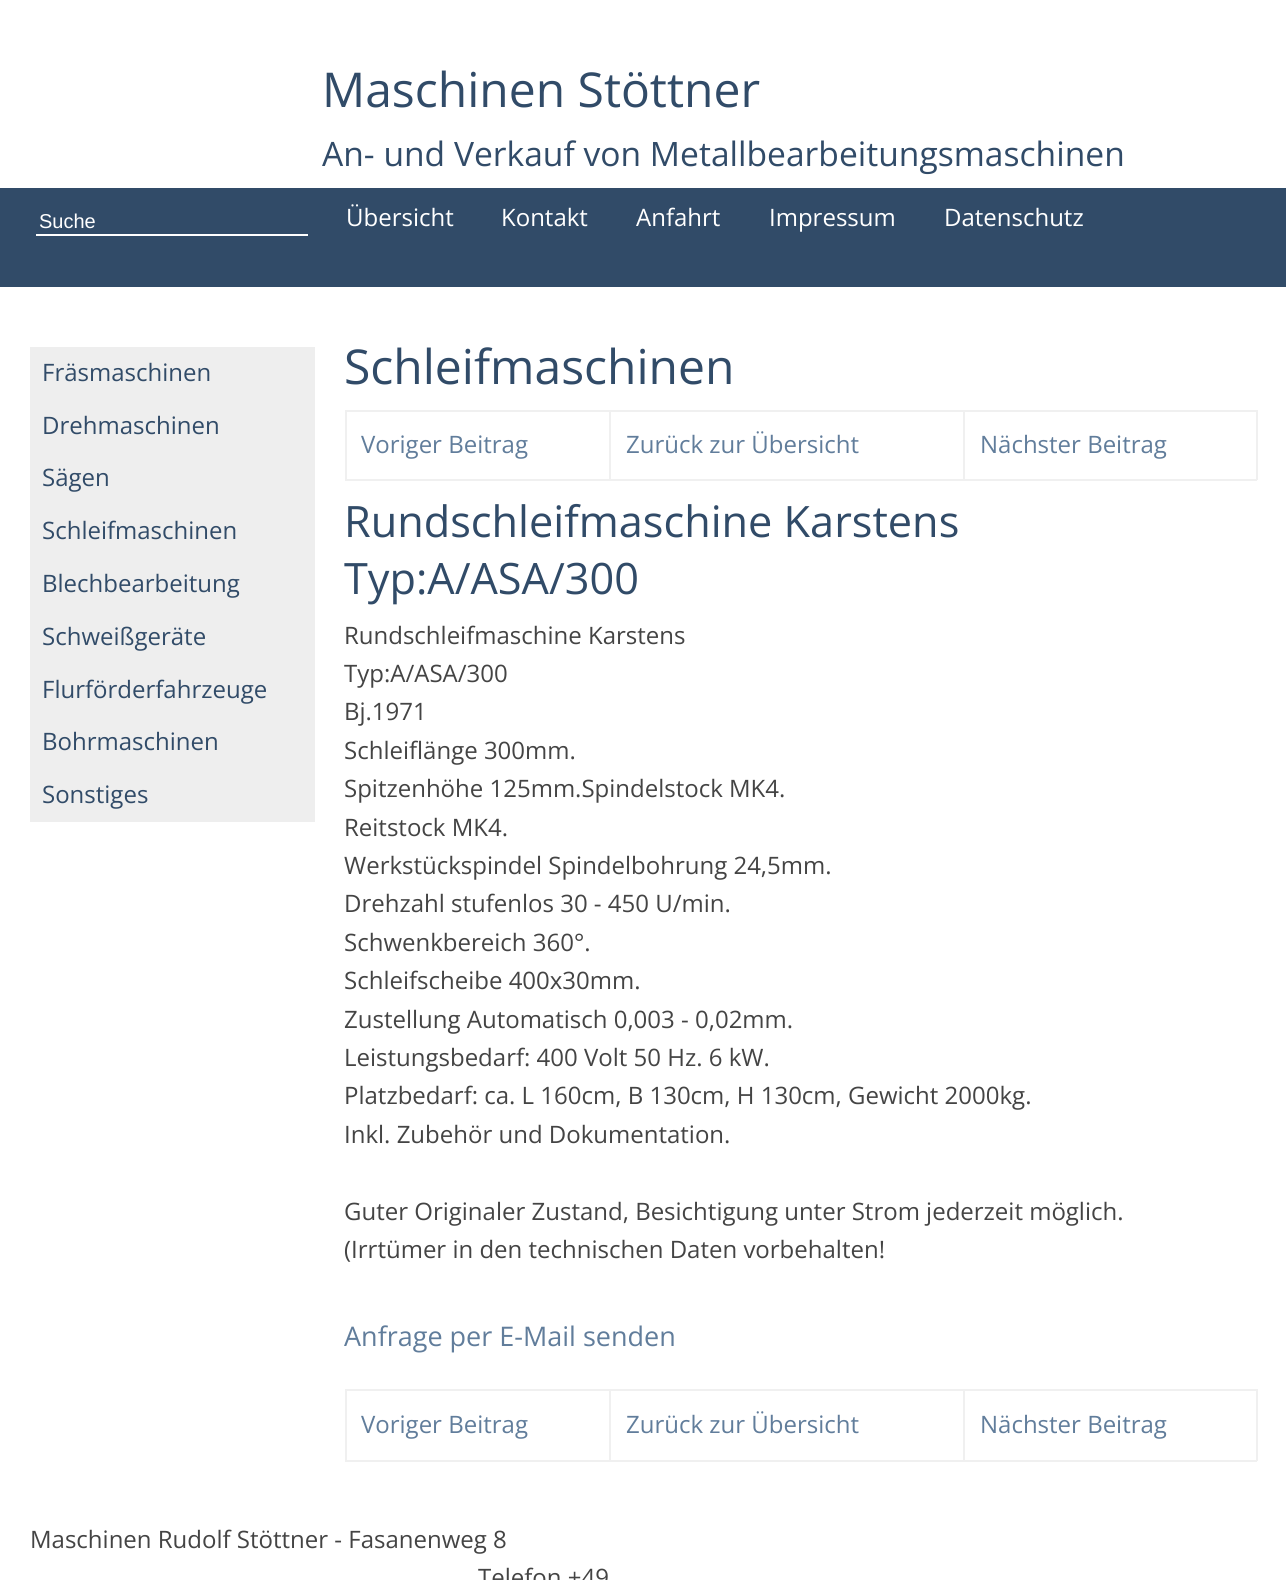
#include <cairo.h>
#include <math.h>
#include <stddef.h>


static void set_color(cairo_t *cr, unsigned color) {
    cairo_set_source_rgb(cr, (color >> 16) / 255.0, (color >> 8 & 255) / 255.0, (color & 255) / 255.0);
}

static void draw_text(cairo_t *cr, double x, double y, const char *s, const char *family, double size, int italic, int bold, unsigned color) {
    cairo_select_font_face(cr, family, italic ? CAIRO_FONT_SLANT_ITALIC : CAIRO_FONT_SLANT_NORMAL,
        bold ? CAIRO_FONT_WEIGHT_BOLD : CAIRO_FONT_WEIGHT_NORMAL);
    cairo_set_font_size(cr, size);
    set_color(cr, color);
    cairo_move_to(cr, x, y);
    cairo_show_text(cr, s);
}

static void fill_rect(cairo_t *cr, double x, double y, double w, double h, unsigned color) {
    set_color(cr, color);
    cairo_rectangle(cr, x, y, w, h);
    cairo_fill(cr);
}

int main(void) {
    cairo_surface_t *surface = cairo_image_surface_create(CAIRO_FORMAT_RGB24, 1286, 1580);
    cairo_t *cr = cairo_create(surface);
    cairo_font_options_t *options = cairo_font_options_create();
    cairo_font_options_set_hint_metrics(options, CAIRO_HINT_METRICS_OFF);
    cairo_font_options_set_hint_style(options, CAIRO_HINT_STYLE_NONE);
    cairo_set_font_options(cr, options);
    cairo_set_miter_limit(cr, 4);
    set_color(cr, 0xFFFFFF);
    cairo_paint(cr);
    draw_text(cr, 322, 107, "Maschinen Stöttner", "Open Sans", 48, 0, 0, 0x314B68);
    draw_text(cr, 322, 166, "An- und Verkauf von Metallbearbeitungsmaschinen", "Open Sans", 33.6, 0, 0, 0x314B68);
    fill_rect(cr, 0, 188, 1286, 99, 0x314B68);
    fill_rect(cr, 36, 234, 272, 2, 0xFFFFFF);
    draw_text(cr, 39, 228, "Suche", "Liberation Sans", 20, 0, 0, 0xFFFFFF);
    draw_text(cr, 346, 226, "Übersicht", "Open Sans", 24, 0, 0, 0xFFFFFF);
    draw_text(cr, 501, 226, "Kontakt", "Open Sans", 24, 0, 0, 0xFFFFFF);
    draw_text(cr, 636, 226, "Anfahrt", "Open Sans", 24, 0, 0, 0xFFFFFF);
    draw_text(cr, 769, 226, "Impressum", "Open Sans", 24, 0, 0, 0xFFFFFF);
    draw_text(cr, 944, 226, "Datenschutz", "Open Sans", 24, 0, 0, 0xFFFFFF);
    fill_rect(cr, 30, 347, 285, 475, 0xEEEEEE);
    draw_text(cr, 42, 381, "Fräsmaschinen", "Open Sans", 24, 0, 0, 0x314B68);
    draw_text(cr, 42, 434, "Drehmaschinen", "Open Sans", 24, 0, 0, 0x314B68);
    draw_text(cr, 42, 486, "Sägen", "Open Sans", 24, 0, 0, 0x314B68);
    draw_text(cr, 42, 539, "Schleifmaschinen", "Open Sans", 24, 0, 0, 0x314B68);
    draw_text(cr, 42, 592, "Blechbearbeitung", "Open Sans", 24, 0, 0, 0x314B68);
    draw_text(cr, 42, 645, "Schweißgeräte", "Open Sans", 24, 0, 0, 0x314B68);
    draw_text(cr, 42, 698, "Flurförderfahrzeuge", "Open Sans", 24, 0, 0, 0x314B68);
    draw_text(cr, 42, 750, "Bohrmaschinen", "Open Sans", 24, 0, 0, 0x314B68);
    draw_text(cr, 42, 803, "Sonstiges", "Open Sans", 24, 0, 0, 0x314B68);
    draw_text(cr, 344, 384, "Schleifmaschinen", "Open Sans", 48, 0, 0, 0x314B68);
    fill_rect(cr, 345, 410, 912, 2, 0xF0F0F0);
    fill_rect(cr, 1256, 410, 2, 70, 0xF0F0F0);
    fill_rect(cr, 345, 479, 912, 2, 0xF0F0F0);
    fill_rect(cr, 345, 410, 2, 70, 0xF0F0F0);
    fill_rect(cr, 609, 410, 2, 70, 0xF0F0F0);
    draw_text(cr, 361, 453, "Voriger Beitrag", "Open Sans", 24, 0, 0, 0x617D9B);
    fill_rect(cr, 963, 410, 2, 70, 0xF0F0F0);
    draw_text(cr, 626, 453, "Zurück zur Übersicht", "Open Sans", 24, 0, 0, 0x617D9B);
    draw_text(cr, 980, 453, "Nächster Beitrag", "Open Sans", 24, 0, 0, 0x617D9B);
    draw_text(cr, 344, 537, "Rundschleifmaschine Karstens", "Open Sans", 43.25, 0, 0, 0x314B68);
    draw_text(cr, 344, 594, "Typ:A/ASA/300", "Open Sans", 43.25, 0, 0, 0x314B68);
    draw_text(cr, 344, 644, "Rundschleifmaschine Karstens", "Open Sans", 24, 0, 0, 0x444444);
    draw_text(cr, 344, 682, "Typ:A/ASA/300", "Open Sans", 24, 0, 0, 0x444444);
    draw_text(cr, 344, 720, "Bj.1971", "Open Sans", 24, 0, 0, 0x444444);
    draw_text(cr, 344, 759, "Schleiflänge 300mm.", "Open Sans", 24, 0, 0, 0x444444);
    draw_text(cr, 344, 797, "Spitzenhöhe 125mm.Spindelstock MK4.", "Open Sans", 24, 0, 0, 0x444444);
    draw_text(cr, 344, 836, "Reitstock MK4.", "Open Sans", 24, 0, 0, 0x444444);
    draw_text(cr, 344, 874, "Werkstückspindel Spindelbohrung 24,5mm.", "Open Sans", 24, 0, 0, 0x444444);
    draw_text(cr, 344, 912, "Drehzahl stufenlos 30 - 450 U/min.", "Open Sans", 24, 0, 0, 0x444444);
    draw_text(cr, 344, 951, "Schwenkbereich 360°.", "Open Sans", 24, 0, 0, 0x444444);
    draw_text(cr, 344, 989, "Schleifscheibe 400x30mm.", "Open Sans", 24, 0, 0, 0x444444);
    draw_text(cr, 344, 1028, "Zustellung Automatisch 0,003 - 0,02mm.", "Open Sans", 24, 0, 0, 0x444444);
    draw_text(cr, 344, 1066, "Leistungsbedarf: 400 Volt 50 Hz. 6 kW.", "Open Sans", 24, 0, 0, 0x444444);
    draw_text(cr, 344, 1104, "Platzbedarf: ca. L 160cm, B 130cm, H 130cm, Gewicht 2000kg.", "Open Sans", 24, 0, 0, 0x444444);
    draw_text(cr, 344, 1143, "Inkl. Zubehör und Dokumentation.", "Open Sans", 24, 0, 0, 0x444444);
    draw_text(cr, 344, 1220, "Guter Originaler Zustand, Besichtigung unter Strom jederzeit möglich.", "Open Sans", 24, 0, 0, 0x444444);
    draw_text(cr, 344, 1258, "(Irrtümer in den technischen Daten vorbehalten!", "Open Sans", 24, 0, 0, 0x444444);
    draw_text(cr, 344, 1346, "Anfrage per E-Mail senden", "Open Sans", 27, 0, 0, 0x617D9B);
    fill_rect(cr, 345, 1389, 912, 2, 0xF0F0F0);
    fill_rect(cr, 1256, 1389, 2, 72, 0xF0F0F0);
    fill_rect(cr, 345, 1460, 912, 2, 0xF0F0F0);
    fill_rect(cr, 345, 1389, 2, 72, 0xF0F0F0);
    fill_rect(cr, 609, 1389, 2, 72, 0xF0F0F0);
    draw_text(cr, 361, 1433, "Voriger Beitrag", "Open Sans", 24, 0, 0, 0x617D9B);
    fill_rect(cr, 963, 1389, 2, 72, 0xF0F0F0);
    draw_text(cr, 626, 1433, "Zurück zur Übersicht", "Open Sans", 24, 0, 0, 0x617D9B);
    draw_text(cr, 980, 1433, "Nächster Beitrag", "Open Sans", 24, 0, 0, 0x617D9B);
    draw_text(cr, 30, 1548, "Maschinen Rudolf Stöttner - Fasanenweg 8", "Open Sans", 24, 0, 0, 0x444444);
    draw_text(cr, 478, 1586, "Telefon +49", "Open Sans", 24, 0, 0, 0x444444);
    cairo_surface_write_to_png(surface, "output.png");
    cairo_font_options_destroy(options);
    cairo_destroy(cr);
    cairo_surface_destroy(surface);
    return 0;
}
